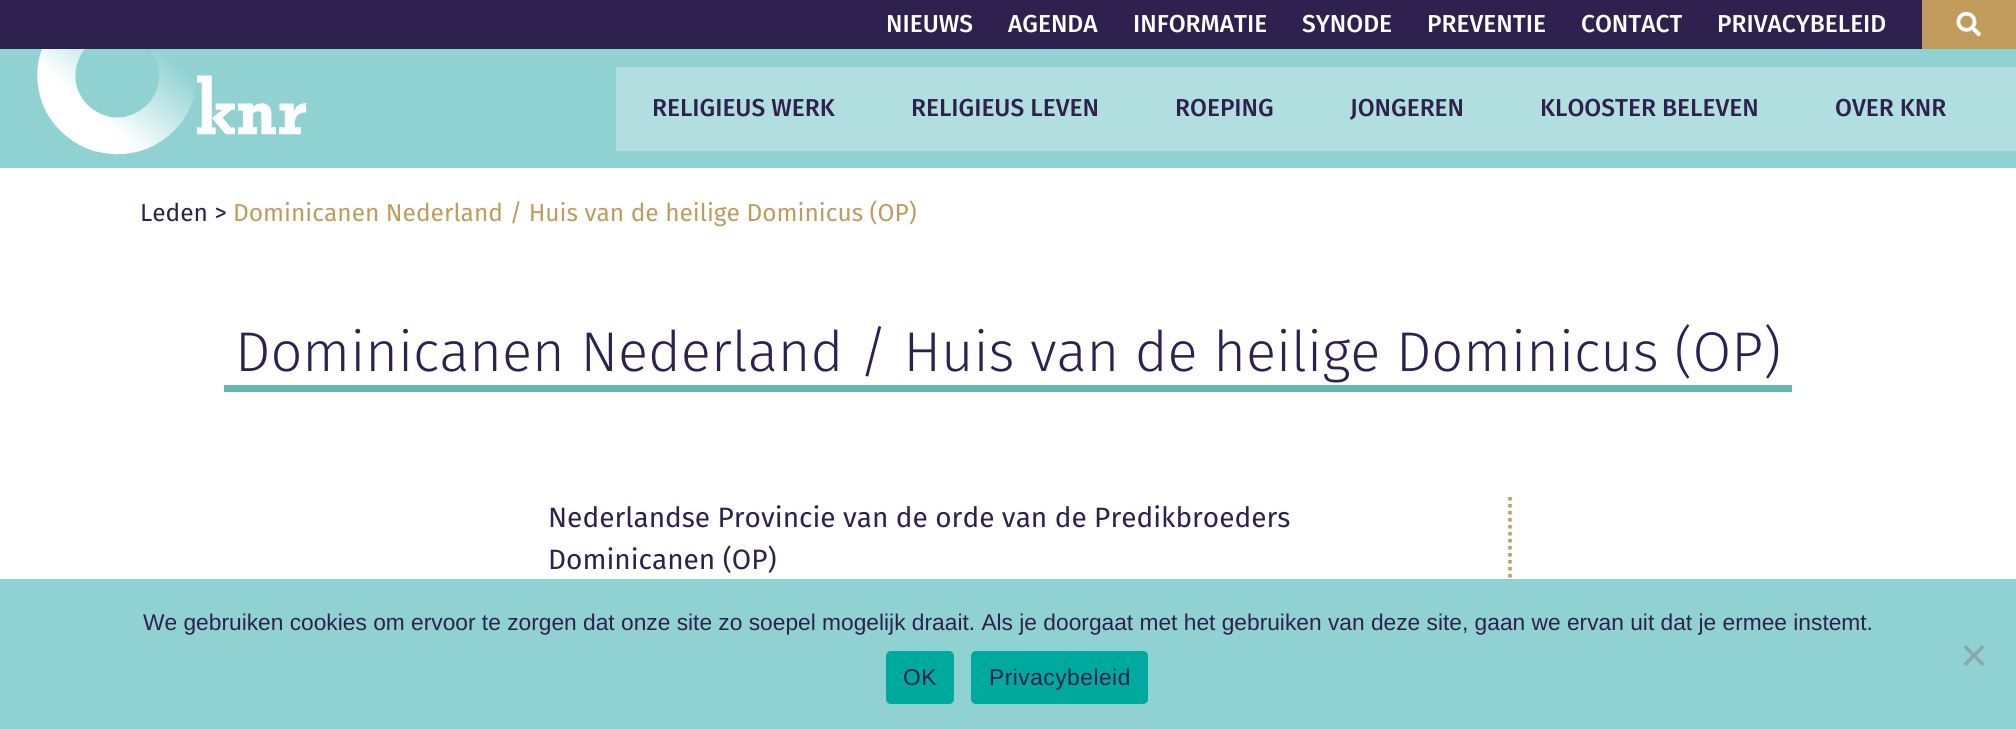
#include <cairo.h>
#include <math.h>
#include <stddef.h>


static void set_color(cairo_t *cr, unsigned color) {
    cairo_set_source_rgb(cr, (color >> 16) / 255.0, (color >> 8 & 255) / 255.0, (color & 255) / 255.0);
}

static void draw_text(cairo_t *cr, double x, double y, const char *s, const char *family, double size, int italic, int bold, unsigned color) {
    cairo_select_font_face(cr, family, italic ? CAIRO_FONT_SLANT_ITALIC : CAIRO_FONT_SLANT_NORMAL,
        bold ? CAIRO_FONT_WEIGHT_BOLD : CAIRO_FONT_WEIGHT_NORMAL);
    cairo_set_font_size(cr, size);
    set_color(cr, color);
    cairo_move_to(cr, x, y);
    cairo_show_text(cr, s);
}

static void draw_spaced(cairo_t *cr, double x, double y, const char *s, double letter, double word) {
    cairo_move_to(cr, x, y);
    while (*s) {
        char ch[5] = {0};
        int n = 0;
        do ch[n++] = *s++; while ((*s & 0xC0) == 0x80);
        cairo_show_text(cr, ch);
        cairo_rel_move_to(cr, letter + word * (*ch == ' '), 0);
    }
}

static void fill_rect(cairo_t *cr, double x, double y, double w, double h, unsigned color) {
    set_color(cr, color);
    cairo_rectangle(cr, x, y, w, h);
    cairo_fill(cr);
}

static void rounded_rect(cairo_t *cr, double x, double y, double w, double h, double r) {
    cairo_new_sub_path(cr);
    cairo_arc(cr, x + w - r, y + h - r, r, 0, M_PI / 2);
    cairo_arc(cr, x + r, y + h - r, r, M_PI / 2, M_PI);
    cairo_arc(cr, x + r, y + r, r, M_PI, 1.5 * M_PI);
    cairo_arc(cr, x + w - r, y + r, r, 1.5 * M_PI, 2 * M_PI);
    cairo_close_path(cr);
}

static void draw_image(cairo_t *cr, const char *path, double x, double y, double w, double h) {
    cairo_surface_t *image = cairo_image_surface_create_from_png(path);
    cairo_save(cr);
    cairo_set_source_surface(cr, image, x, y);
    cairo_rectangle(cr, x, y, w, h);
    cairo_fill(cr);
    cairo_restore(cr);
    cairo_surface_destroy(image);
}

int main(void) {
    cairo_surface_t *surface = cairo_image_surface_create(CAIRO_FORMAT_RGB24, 2016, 729);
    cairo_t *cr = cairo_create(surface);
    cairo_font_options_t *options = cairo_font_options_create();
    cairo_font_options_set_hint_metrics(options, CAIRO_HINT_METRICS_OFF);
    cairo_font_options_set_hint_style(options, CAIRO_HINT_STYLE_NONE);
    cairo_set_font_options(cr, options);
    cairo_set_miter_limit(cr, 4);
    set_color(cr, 0xFFFFFF);
    cairo_paint(cr);
    fill_rect(cr, 0, 0, 1922, 49, 0x2E204F);
    draw_text(cr, 886, 32, "NIEUWS", "Fira Sans Medium", 24.5, 0, 0, 0xFFFFFF);
    draw_text(cr, 1008, 32, "AGENDA", "Fira Sans Medium", 24.5, 0, 0, 0xFFFFFF);
    draw_text(cr, 1133, 32, "INFORMATIE", "Fira Sans Medium", 24.5, 0, 0, 0xFFFFFF);
    draw_text(cr, 1302, 32, "SYNODE", "Fira Sans Medium", 24.5, 0, 0, 0xFFFFFF);
    draw_text(cr, 1427, 32, "PREVENTIE", "Fira Sans Medium", 24.5, 0, 0, 0xFFFFFF);
    draw_text(cr, 1581, 32, "CONTACT", "Fira Sans Medium", 24.5, 0, 0, 0xFFFFFF);
    draw_text(cr, 1717, 32, "PRIVACYBELEID", "Fira Sans Medium", 24.5, 0, 0, 0xFFFFFF);
    fill_rect(cr, 1922, 0, 94, 49, 0xC09B5B);
    draw_image(cr, "assets/img1.png", 1956, 11, 25, 26);
    fill_rect(cr, 0, 49, 2016, 119, 0x90D2D2);
    draw_image(cr, "assets/img2.png", 37, 49, 270, 106);
    fill_rect(cr, 616, 67, 1400, 84, 0xB1DFDF);
    draw_text(cr, 652, 116, "RELIGIEUS WERK", "Fira Sans Medium", 24.5, 0, 0, 0x2E204F);
    draw_text(cr, 911, 116, "RELIGIEUS LEVEN", "Fira Sans Medium", 24.5, 0, 0, 0x2E204F);
    draw_text(cr, 1175, 116, "ROEPING", "Fira Sans Medium", 24.5, 0, 0, 0x2E204F);
    draw_text(cr, 1350, 116, "JONGEREN", "Fira Sans Medium", 24.5, 0, 0, 0x2E204F);
    draw_text(cr, 1540, 116, "KLOOSTER BELEVEN", "Fira Sans Medium", 24.5, 0, 0, 0x2E204F);
    draw_text(cr, 1835, 116, "OVER KNR", "Fira Sans Medium", 24.5, 0, 0, 0x2E204F);
    draw_text(cr, 140, 221, "Leden >", "Fira Sans", 24.5, 0, 0, 0x2E204F);
    draw_text(cr, 233, 221, "Dominicanen Nederland / Huis van de heilige Dominicus (OP)", "Fira Sans", 24.5, 0, 0, 0xC09B5B);
    fill_rect(cr, 224, 385, 1568, 7, 0x64B8B8);
    draw_text(cr, 235, 371, "Dominicanen Nederland / Huis van de heilige Dominicus (OP)", "Fira Sans Light", 56, 0, 0, 0x2E204F);
    cairo_new_path(cr);
    cairo_move_to(cr, 1510, 497);
    cairo_line_to(cr, 1510, 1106);
    set_color(cr, 0xC09B5B);
    cairo_set_line_width(cr, 3.5);
    cairo_set_dash(cr, (double[]){3.5, 3.5}, 2, 0);
    cairo_stroke(cr);
    draw_text(cr, 548, 527, "Nederlandse Provincie van de orde van de Predikbroeders", "Fira Sans", 28, 0, 0, 0x2E204F);
    draw_text(cr, 548, 569, "Dominicanen (OP)", "Fira Sans", 28, 0, 0, 0x2E204F);
    fill_rect(cr, 0, 579, 2016, 150, 0x90D2D2);
    draw_text(cr, 143, 630, "We gebruiken cookies om ervoor te zorgen dat onze site zo soepel mogelijk draait. Als je doorgaat met het gebruiken van deze site, gaan we ervan uit dat je ermee instemt.", "Liberation Sans", 22.75, 0, 0, 0x2E204F);
    set_color(cr, 0x88A9A9);
    cairo_new_path(cr);
    cairo_move_to(cr, 1982, 645);
    cairo_line_to(cr, 1984.5, 647.5);
    cairo_line_to(cr, 1966, 666);
    cairo_line_to(cr, 1963.5, 663.5);
    cairo_close_path(cr);
    cairo_fill(cr);
    cairo_new_path(cr);
    cairo_move_to(cr, 1963.5, 647.5);
    cairo_line_to(cr, 1966, 645);
    cairo_line_to(cr, 1984.5, 663.5);
    cairo_line_to(cr, 1982, 666);
    cairo_close_path(cr);
    cairo_fill(cr);
    set_color(cr, 0x00A99D);
    rounded_rect(cr, 886, 651, 68, 53, 5);
    cairo_fill(cr);
    set_color(cr, 0x2E204F);
    draw_spaced(cr, 903, 685, "OK", 0.5, 0);
    set_color(cr, 0x00A99D);
    rounded_rect(cr, 971, 651, 177, 53, 5);
    cairo_fill(cr);
    set_color(cr, 0x2E204F);
    draw_spaced(cr, 989, 685, "Privacybeleid", 0.5, 0);
    cairo_surface_write_to_png(surface, "output.png");
    cairo_font_options_destroy(options);
    cairo_destroy(cr);
    cairo_surface_destroy(surface);
    return 0;
}
